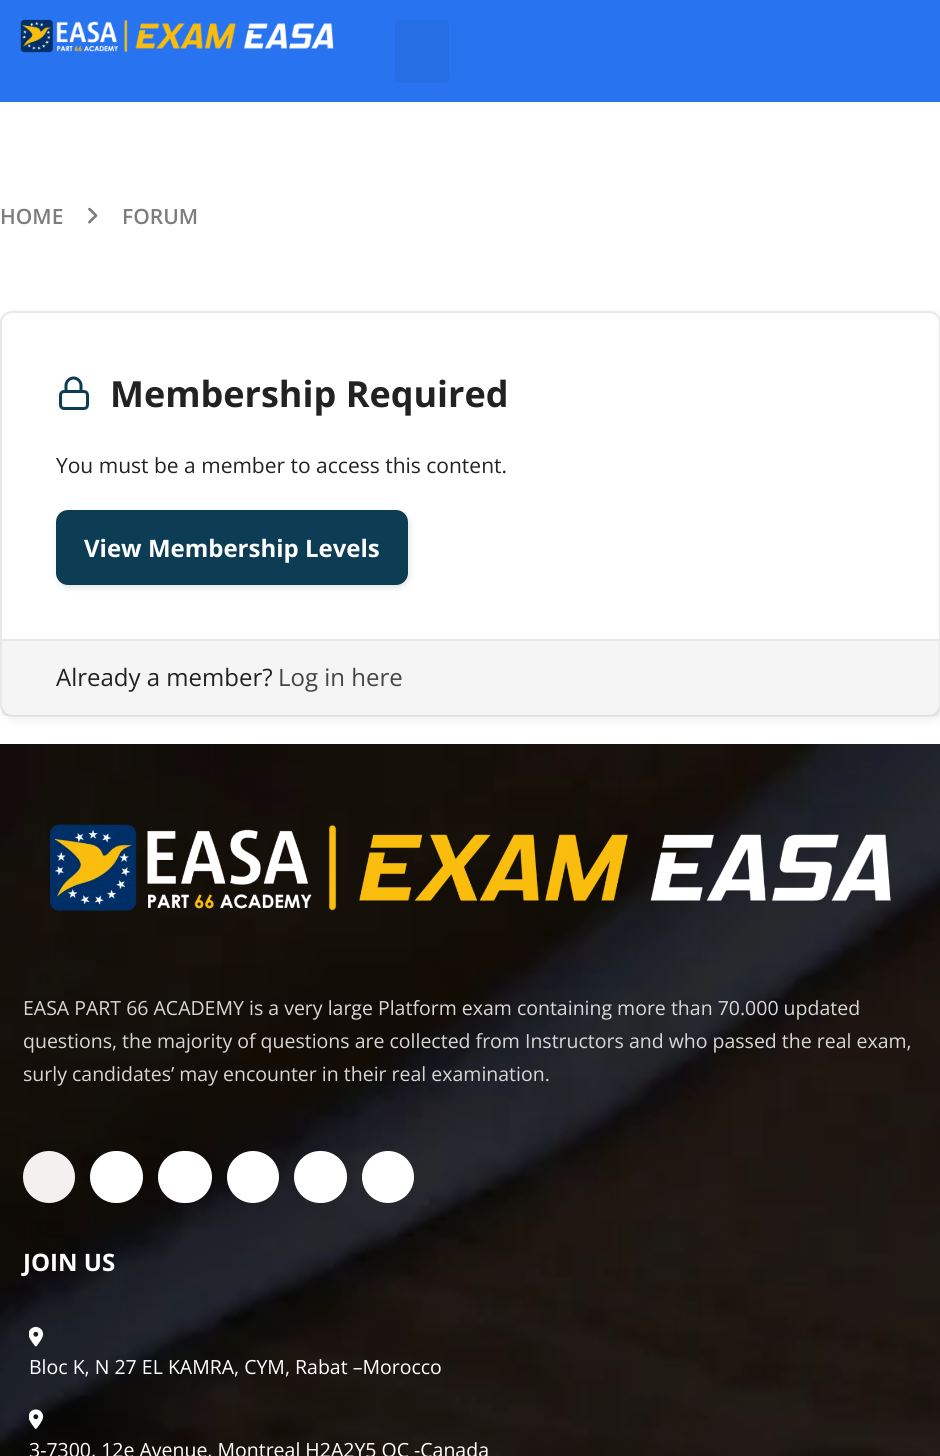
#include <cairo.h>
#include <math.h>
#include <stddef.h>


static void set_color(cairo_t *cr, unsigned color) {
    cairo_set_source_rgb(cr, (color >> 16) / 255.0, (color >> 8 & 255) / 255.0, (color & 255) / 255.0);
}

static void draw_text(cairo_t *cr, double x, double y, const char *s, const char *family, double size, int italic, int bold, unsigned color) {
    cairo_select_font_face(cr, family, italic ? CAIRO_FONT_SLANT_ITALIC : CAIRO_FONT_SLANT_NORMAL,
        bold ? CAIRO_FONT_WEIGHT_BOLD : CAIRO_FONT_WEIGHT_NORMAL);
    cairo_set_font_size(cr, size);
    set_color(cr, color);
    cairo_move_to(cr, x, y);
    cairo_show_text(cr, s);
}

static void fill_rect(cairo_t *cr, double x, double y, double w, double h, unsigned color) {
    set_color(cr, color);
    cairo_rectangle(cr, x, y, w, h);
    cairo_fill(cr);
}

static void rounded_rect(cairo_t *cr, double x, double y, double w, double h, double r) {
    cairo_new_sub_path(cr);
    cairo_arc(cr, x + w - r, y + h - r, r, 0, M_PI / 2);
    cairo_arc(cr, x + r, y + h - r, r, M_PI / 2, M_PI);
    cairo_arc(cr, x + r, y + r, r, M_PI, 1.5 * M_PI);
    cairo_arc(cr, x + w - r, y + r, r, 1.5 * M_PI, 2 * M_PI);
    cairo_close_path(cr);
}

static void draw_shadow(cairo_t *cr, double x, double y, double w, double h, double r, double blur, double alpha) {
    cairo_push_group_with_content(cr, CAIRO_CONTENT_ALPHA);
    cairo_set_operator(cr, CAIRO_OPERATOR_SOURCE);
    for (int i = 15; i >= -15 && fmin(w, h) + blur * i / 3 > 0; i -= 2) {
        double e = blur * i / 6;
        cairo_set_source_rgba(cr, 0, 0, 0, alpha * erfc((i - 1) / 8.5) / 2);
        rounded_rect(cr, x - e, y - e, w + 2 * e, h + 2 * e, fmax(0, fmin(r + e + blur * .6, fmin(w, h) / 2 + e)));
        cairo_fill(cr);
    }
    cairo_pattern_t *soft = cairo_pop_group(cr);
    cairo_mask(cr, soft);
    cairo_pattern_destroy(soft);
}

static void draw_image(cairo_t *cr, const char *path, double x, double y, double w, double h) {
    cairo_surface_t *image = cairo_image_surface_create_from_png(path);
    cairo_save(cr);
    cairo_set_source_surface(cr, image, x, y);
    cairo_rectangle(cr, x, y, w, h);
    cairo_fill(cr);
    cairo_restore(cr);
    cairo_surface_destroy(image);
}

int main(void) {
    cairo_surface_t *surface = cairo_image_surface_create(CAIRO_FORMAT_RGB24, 940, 1456);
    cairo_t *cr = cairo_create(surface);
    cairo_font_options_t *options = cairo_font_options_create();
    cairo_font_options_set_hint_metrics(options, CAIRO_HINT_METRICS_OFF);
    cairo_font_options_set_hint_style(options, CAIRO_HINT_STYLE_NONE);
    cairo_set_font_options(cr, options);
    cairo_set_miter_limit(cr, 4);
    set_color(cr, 0xFFFFFF);
    cairo_paint(cr);
    fill_rect(cr, 0, 0, 940, 102, 0x2874F0);
    draw_image(cr, "assets/img1.png", 20, 19, 314, 34);
    set_color(cr, 0x266EE4);
    rounded_rect(cr, 395, 20, 54, 63, 5);
    cairo_fill(cr);
    draw_text(cr, 0, 224, "HOME", "Open Sans SemiBold", 21, 0, 0, 0x7D7D7D);
    draw_image(cr, "assets/img2.png", 88, 207, 10, 17);
    draw_text(cr, 122, 224, "FORUM", "Open Sans SemiBold", 21, 0, 0, 0x7D7D7D);
    set_color(cr, 0x000000);
    draw_shadow(cr, 3, 314, 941, 406, 12, 5, 0.07);
    set_color(cr, 0xFFFFFF);
    rounded_rect(cr, 1, 312, 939, 404, 11);
    cairo_fill_preserve(cr);
    set_color(cr, 0xE8E8E8);
    cairo_stroke(cr);
    rounded_rect(cr, 60.5, 391.5, 27, 17, 3.5);
    set_color(cr, 0x0C3D54);
    cairo_set_line_width(cr, 3);
    cairo_stroke(cr);
    cairo_new_path(cr);
    cairo_move_to(cr, 66, 391.5);
    cairo_line_to(cr, 66, 385.5);
    cairo_curve_to(cr, 66, 381.5, 69.5, 378, 73.5, 378);
    cairo_curve_to(cr, 77.5, 378, 81, 381.5, 81, 385.5);
    cairo_line_to(cr, 81, 391.5);
    cairo_set_line_cap(cr, CAIRO_LINE_CAP_ROUND);
    cairo_set_line_join(cr, CAIRO_LINE_JOIN_ROUND);
    cairo_stroke(cr);
    draw_text(cr, 110, 407, "Membership Required", "Open Sans", 36, 0, 1, 0x222222);
    draw_text(cr, 56, 473, "You must be a member to access this content.", "Open Sans", 21, 0, 0, 0x222222);
    set_color(cr, 0x000000);
    draw_shadow(cr, 57, 513, 353, 75, 12, 3, 0.1);
    set_color(cr, 0x0C3D54);
    rounded_rect(cr, 57, 511, 350, 73, 11);
    cairo_fill_preserve(cr);
    cairo_set_line_width(cr, 2);
    cairo_set_line_cap(cr, CAIRO_LINE_CAP_BUTT);
    cairo_set_line_join(cr, CAIRO_LINE_JOIN_MITER);
    cairo_stroke(cr);
    draw_text(cr, 84, 557, "View Membership Levels", "Open Sans", 24, 0, 1, 0xFFFFFF);
    cairo_set_source_rgba(cr, 0, 0, 0, 0.04);
    cairo_rectangle(cr, 2, 641, 937, 75);
    cairo_fill(cr);
    fill_rect(cr, 2, 639, 937, 2, 0xE8E8E8);
    draw_text(cr, 56, 686, "Already a member?", "Open Sans", 24, 0, 0, 0x222222);
    draw_text(cr, 278, 686, "Log in here", "Open Sans", 24, 0, 0, 0x464646);
    draw_image(cr, "assets/img3.png", 0, 744, 940, 712);
    draw_image(cr, "assets/img4.png", 50, 824, 841, 87);
    draw_text(cr, 23, 1015, "EASA PART 66 ACADEMY is a very large Platform exam containing more than 70.000 updated", "Open Sans", 19.5, 0, 0, 0xD7D7D7);
    draw_text(cr, 23, 1048, "questions, the majority of questions are collected from Instructors and who passed the real exam,", "Open Sans", 19.5, 0, 0, 0xD7D7D7);
    draw_text(cr, 23, 1081, "surly candidates’ may encounter in their real examination.", "Open Sans", 19.5, 0, 0, 0xD7D7D7);
    set_color(cr, 0xF4F0F0);
    cairo_new_path(cr);
    cairo_arc(cr, 49, 1177, 26, 0, 2 * M_PI);
    cairo_fill(cr);
    set_color(cr, 0xFFFFFF);
    rounded_rect(cr, 90, 1151, 53, 52, 26);
    cairo_fill(cr);
    rounded_rect(cr, 158, 1151, 54, 52, 26);
    cairo_fill(cr);
    cairo_arc(cr, 253, 1177, 26, 0, 2 * M_PI);
    cairo_fill(cr);
    rounded_rect(cr, 294, 1151, 53, 52, 26);
    cairo_fill(cr);
    cairo_arc(cr, 388, 1177, 26, 0, 2 * M_PI);
    cairo_fill(cr);
    draw_text(cr, 23, 1271, "JOIN US", "Open Sans", 24, 0, 1, 0xFFFFFF);
    draw_image(cr, "assets/img5.png", 29, 1326, 15, 21);
    draw_text(cr, 29, 1374, "Bloc K, N 27 EL KAMRA, CYM, Rabat –Morocco", "Open Sans", 19.5, 0, 0, 0xFFFFFF);
    draw_image(cr, "assets/img6.png", 29, 1409, 15, 20);
    draw_text(cr, 29, 1457, "3-7300, 12e Avenue, Montreal H2A2Y5 QC -Canada", "Open Sans", 19.5, 0, 0, 0xFFFFFF);
    cairo_surface_write_to_png(surface, "output.png");
    cairo_font_options_destroy(options);
    cairo_destroy(cr);
    cairo_surface_destroy(surface);
    return 0;
}
